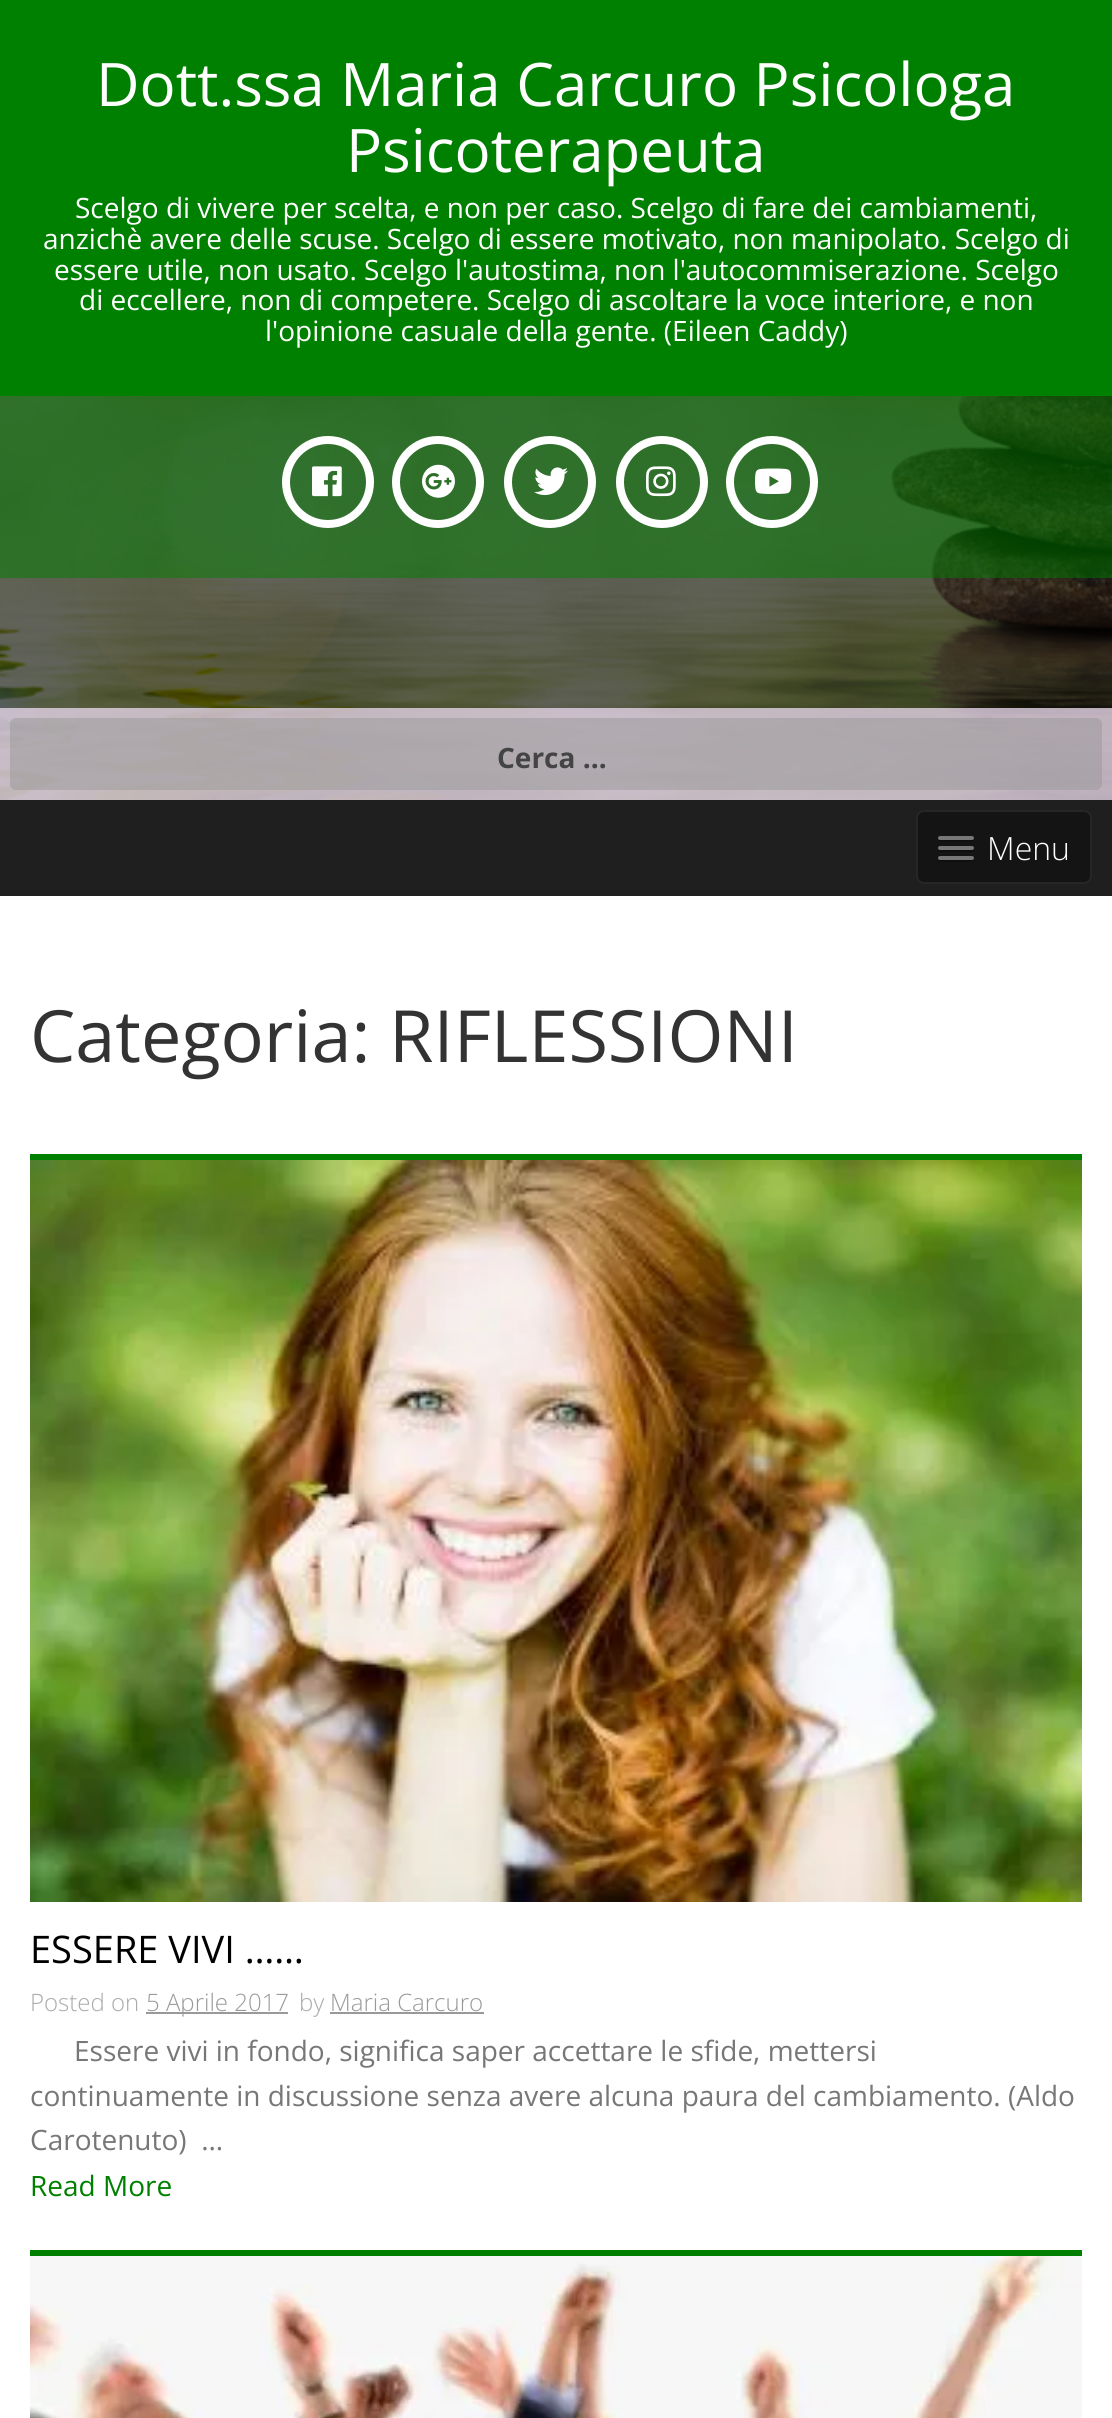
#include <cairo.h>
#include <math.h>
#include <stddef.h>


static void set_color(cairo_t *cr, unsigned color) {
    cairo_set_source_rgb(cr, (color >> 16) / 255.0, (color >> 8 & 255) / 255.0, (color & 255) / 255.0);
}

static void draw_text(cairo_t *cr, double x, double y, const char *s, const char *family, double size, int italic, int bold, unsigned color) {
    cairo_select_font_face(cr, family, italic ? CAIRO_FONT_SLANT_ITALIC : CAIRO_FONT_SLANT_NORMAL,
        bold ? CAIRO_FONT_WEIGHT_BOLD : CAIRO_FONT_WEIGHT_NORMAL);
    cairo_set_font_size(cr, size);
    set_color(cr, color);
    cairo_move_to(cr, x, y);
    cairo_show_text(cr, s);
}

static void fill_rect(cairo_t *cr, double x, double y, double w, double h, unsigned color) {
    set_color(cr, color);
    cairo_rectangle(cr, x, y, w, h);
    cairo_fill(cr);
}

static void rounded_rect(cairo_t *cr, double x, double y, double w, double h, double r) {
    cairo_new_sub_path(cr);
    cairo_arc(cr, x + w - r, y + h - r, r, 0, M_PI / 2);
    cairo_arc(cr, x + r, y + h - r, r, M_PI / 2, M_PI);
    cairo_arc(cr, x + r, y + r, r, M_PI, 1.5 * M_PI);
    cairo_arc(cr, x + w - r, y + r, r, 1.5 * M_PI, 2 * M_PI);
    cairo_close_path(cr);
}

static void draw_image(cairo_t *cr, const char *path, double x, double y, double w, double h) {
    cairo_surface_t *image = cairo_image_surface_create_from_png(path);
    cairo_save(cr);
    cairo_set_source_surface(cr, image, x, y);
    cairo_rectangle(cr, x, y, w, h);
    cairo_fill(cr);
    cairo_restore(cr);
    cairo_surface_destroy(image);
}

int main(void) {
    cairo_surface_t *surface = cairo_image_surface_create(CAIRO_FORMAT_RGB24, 1112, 2418);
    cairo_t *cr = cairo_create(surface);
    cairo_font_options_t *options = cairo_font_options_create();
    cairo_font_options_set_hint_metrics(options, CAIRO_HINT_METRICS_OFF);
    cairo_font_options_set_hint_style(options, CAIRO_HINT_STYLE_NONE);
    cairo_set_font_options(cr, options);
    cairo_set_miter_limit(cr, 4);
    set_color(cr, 0xFFFFFF);
    cairo_paint(cr);
    draw_image(cr, "assets/img1.png", 0, 396, 1112, 404);
    fill_rect(cr, 0, 0, 1112, 396, 0x008000);
    draw_text(cr, 96, 106, "Dott.ssa Maria Carcuro Psicologa", "Open Sans", 60, 0, 0, 0xFFFFFF);
    draw_text(cr, 346, 172, "Psicoterapeuta", "Open Sans", 60, 0, 0, 0xFFFFFF);
    draw_text(cr, 75, 218, "Scelgo di vivere per scelta, e non per caso. Scelgo di fare dei cambiamenti,", "Open Sans", 28, 0, 0, 0xFFFFFF);
    draw_text(cr, 43, 249, "anzichè avere delle scuse. Scelgo di essere motivato, non manipolato. Scelgo di", "Open Sans", 28, 0, 0, 0xFFFFFF);
    draw_text(cr, 54, 280, "essere utile, non usato. Scelgo l'autostima, non l'autocommiserazione. Scelgo", "Open Sans", 28, 0, 0, 0xFFFFFF);
    draw_text(cr, 79, 310, "di eccellere, non di competere. Scelgo di ascoltare la voce interiore, e non", "Open Sans", 28, 0, 0, 0xFFFFFF);
    draw_text(cr, 265, 341, "l'opinione casuale della gente. (Eileen Caddy)", "Open Sans", 28, 0, 0, 0xFFFFFF);
    cairo_set_source_rgba(cr, 0, 0.502, 0, 0.5);
    cairo_rectangle(cr, 0, 396, 1112, 182);
    cairo_fill(cr);
    cairo_arc(cr, 328, 482, 42, 0, 2 * M_PI);
    set_color(cr, 0xFFFFFF);
    cairo_set_line_width(cr, 8);
    cairo_stroke(cr);
    draw_image(cr, "assets/img2.png", 312, 466, 30, 31);
    cairo_arc(cr, 438, 482, 42, 0, 2 * M_PI);
    cairo_stroke(cr);
    draw_image(cr, "assets/img3.png", 422, 464, 33, 34);
    cairo_arc(cr, 550, 482, 42, 0, 2 * M_PI);
    cairo_stroke(cr);
    draw_image(cr, "assets/img4.png", 534, 467, 34, 29);
    cairo_arc(cr, 662, 482, 42, 0, 2 * M_PI);
    cairo_stroke(cr);
    draw_image(cr, "assets/img5.png", 646, 466, 30, 31);
    cairo_arc(cr, 772, 482, 42, 0, 2 * M_PI);
    cairo_stroke(cr);
    draw_image(cr, "assets/img6.png", 755, 468, 37, 26);
    cairo_set_source_rgba(cr, 0.898, 0.831, 0.906, 0.8);
    cairo_rectangle(cr, 0, 708, 1112, 92);
    cairo_fill(cr);
    cairo_set_source_rgba(cr, 0.6, 0.6, 0.6, 0.5);
    rounded_rect(cr, 10, 718, 1092, 72, 6);
    cairo_fill(cr);
    draw_text(cr, 497, 768, "Cerca …", "Open Sans", 28, 0, 1, 0x444444);
    fill_rect(cr, 0, 800, 1112, 96, 0x1F1F1F);
    set_color(cr, 0x141414);
    rounded_rect(cr, 917, 811, 174, 72, 7);
    cairo_fill_preserve(cr);
    set_color(cr, 0x262626);
    cairo_set_line_width(cr, 2);
    cairo_stroke(cr);
    set_color(cr, 0x0F0F0F);
    cairo_new_path(cr);
    cairo_move_to(cr, 938.5, 839);
    cairo_curve_to(cr, 936, 843, 945, 842, 945.5, 842);
    cairo_line_to(cr, 966.5, 842);
    cairo_curve_to(cr, 967, 842, 976, 843, 973.5, 839);
    cairo_curve_to(cr, 973.5, 839.5, 972.5, 840, 972, 840);
    cairo_line_to(cr, 940, 840);
    cairo_curve_to(cr, 939.5, 840, 938.5, 839.5, 938.5, 839);
    cairo_close_path(cr);
    cairo_fill(cr);
    set_color(cr, 0x777777);
    rounded_rect(cr, 938, 836, 36, 4, 2);
    cairo_fill(cr);
    set_color(cr, 0x0F0F0F);
    cairo_new_path(cr);
    cairo_move_to(cr, 938.5, 849);
    cairo_curve_to(cr, 936, 853, 945, 852, 945.5, 852);
    cairo_line_to(cr, 966.5, 852);
    cairo_curve_to(cr, 967, 852, 976, 853, 973.5, 849);
    cairo_curve_to(cr, 973.5, 849.5, 972.5, 850, 972, 850);
    cairo_line_to(cr, 940, 850);
    cairo_curve_to(cr, 939.5, 850, 938.5, 849.5, 938.5, 849);
    cairo_close_path(cr);
    cairo_fill(cr);
    set_color(cr, 0x777777);
    rounded_rect(cr, 938, 846, 36, 4, 2);
    cairo_fill(cr);
    set_color(cr, 0x0F0F0F);
    cairo_new_path(cr);
    cairo_move_to(cr, 938.5, 859);
    cairo_curve_to(cr, 936, 863, 945, 862, 945.5, 862);
    cairo_line_to(cr, 966.5, 862);
    cairo_curve_to(cr, 967, 862, 976, 863, 973.5, 859);
    cairo_curve_to(cr, 973.5, 859.5, 972.5, 860, 972, 860);
    cairo_line_to(cr, 940, 860);
    cairo_curve_to(cr, 939.5, 860, 938.5, 859.5, 938.5, 859);
    cairo_close_path(cr);
    cairo_fill(cr);
    set_color(cr, 0x777777);
    rounded_rect(cr, 938, 856, 36, 4, 2);
    cairo_fill(cr);
    draw_text(cr, 987, 860, "Menu", "Open Sans Light", 32, 0, 0, 0xFFFFFF);
    draw_text(cr, 30, 1062, "Categoria: RIFLESSIONI", "Open Sans", 72, 0, 0, 0x333333);
    fill_rect(cr, 30, 1154, 1052, 6, 0x008000);
    draw_image(cr, "assets/img7.png", 30, 1160, 1052, 742);
    draw_text(cr, 30, 1963, "ESSERE VIVI ……", "Open Sans", 38, 0, 0, 0x000000);
    draw_text(cr, 30, 2011, "Posted on", "Open Sans Light", 24, 0, 0, 0xAAAAAA);
    fill_rect(cr, 146, 2012, 142, 2, 0x999999);
    draw_text(cr, 146, 2011, "5 Aprile 2017", "Open Sans Light", 24, 0, 0, 0x999999);
    draw_text(cr, 299, 2011, "by", "Open Sans Light", 24, 0, 0, 0xAAAAAA);
    draw_text(cr, 330, 2011, "Maria Carcuro", "Open Sans Light", 24, 0, 0, 0x999999);
    fill_rect(cr, 330, 2012, 154, 2, 0x999999);
    draw_text(cr, 74, 2061, "Essere vivi in fondo, significa saper accettare le sfide, mettersi", "Open Sans", 28, 0, 0, 0x777777);
    draw_text(cr, 30, 2106, "continuamente in discussione senza avere alcuna paura del cambiamento. (Aldo", "Open Sans", 28, 0, 0, 0x777777);
    draw_text(cr, 30, 2150, "Carotenuto)  ...", "Open Sans", 28, 0, 0, 0x777777);
    draw_text(cr, 30, 2196, "Read More", "Open Sans", 28, 0, 0, 0x008000);
    fill_rect(cr, 30, 2250, 1052, 6, 0x008000);
    draw_image(cr, "assets/img8.png", 30, 2256, 1052, 162);
    cairo_surface_write_to_png(surface, "output.png");
    cairo_font_options_destroy(options);
    cairo_destroy(cr);
    cairo_surface_destroy(surface);
    return 0;
}
